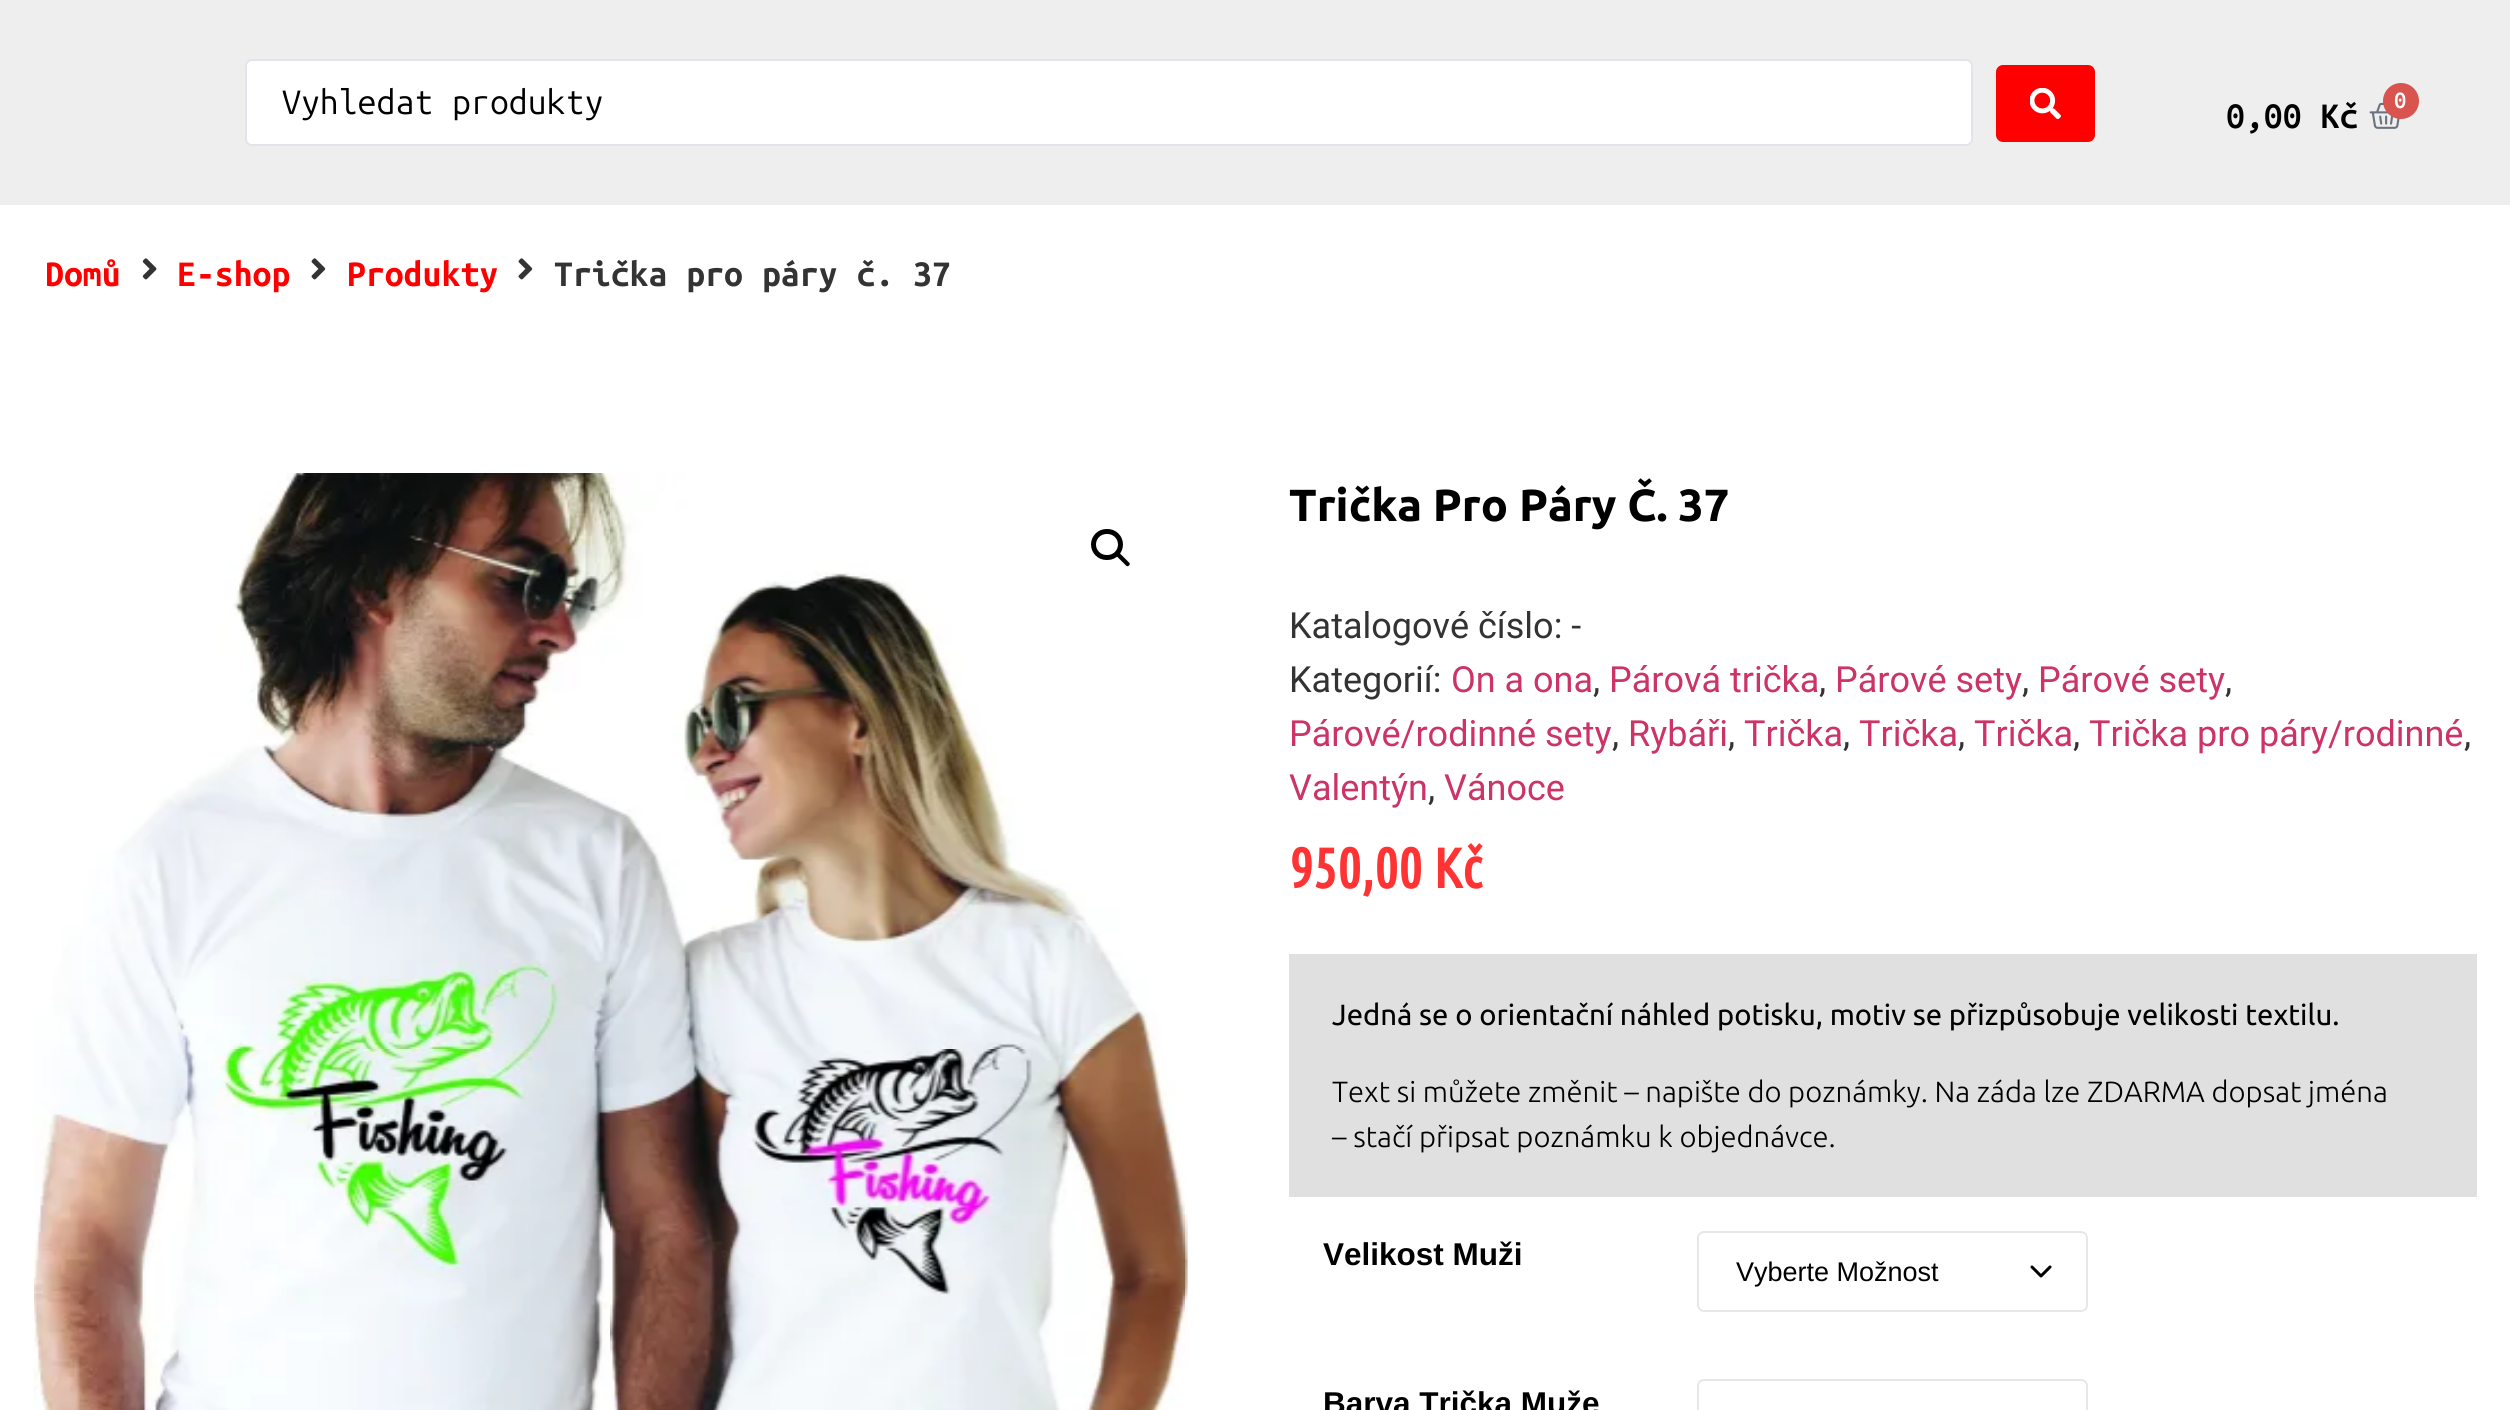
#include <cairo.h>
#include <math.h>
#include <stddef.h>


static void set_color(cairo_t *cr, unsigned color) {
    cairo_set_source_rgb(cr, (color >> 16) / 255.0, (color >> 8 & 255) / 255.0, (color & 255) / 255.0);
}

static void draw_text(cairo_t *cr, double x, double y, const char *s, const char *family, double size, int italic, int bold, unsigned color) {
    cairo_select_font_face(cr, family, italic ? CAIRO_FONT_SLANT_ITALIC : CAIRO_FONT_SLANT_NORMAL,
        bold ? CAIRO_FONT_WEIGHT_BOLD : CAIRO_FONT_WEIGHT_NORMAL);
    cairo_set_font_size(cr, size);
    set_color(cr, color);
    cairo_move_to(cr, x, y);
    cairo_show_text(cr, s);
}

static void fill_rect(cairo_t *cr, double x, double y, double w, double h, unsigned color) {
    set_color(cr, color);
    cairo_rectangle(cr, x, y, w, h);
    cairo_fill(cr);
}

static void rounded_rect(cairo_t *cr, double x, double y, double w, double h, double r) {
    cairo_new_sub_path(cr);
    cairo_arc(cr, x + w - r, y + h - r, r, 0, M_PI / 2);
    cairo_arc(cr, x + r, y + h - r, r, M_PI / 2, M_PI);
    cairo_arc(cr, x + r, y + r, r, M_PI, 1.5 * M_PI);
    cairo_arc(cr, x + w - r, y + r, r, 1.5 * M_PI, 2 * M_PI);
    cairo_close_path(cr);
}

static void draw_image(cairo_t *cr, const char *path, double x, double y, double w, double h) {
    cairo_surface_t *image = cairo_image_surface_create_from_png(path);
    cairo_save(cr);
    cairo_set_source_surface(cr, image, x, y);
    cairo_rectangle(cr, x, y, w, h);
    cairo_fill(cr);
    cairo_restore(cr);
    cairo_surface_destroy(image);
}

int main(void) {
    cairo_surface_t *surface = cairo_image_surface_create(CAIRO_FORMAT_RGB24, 2510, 1410);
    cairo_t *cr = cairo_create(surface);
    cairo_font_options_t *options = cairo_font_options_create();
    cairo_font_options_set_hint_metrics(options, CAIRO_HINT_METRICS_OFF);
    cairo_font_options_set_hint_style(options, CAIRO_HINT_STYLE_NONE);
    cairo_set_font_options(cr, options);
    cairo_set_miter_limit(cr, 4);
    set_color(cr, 0xFFFFFF);
    cairo_paint(cr);
    fill_rect(cr, 0, 0, 2510, 205, 0xEEEEEE);
    set_color(cr, 0xFFFFFF);
    rounded_rect(cr, 246, 60, 1726, 85, 6);
    cairo_fill_preserve(cr);
    set_color(cr, 0xE1E5EB);
    cairo_stroke(cr);
    draw_text(cr, 282, 114, "Vyhledat produkty", "Ubuntu Mono", 33.75, 0, 0, 0x000000);
    set_color(cr, 0xFF0000);
    rounded_rect(cr, 1996, 65, 99, 77, 7);
    cairo_fill(cr);
    draw_image(cr, "assets/img1.png", 2030, 88, 31, 31);
    draw_text(cr, 2226, 128, "0,00 Kč", "Ubuntu Mono SemiBold", 33.75, 0, 0, 0x000000);
    draw_image(cr, "assets/img2.png", 2369, 102, 31, 27);
    set_color(cr, 0xD9534F);
    cairo_arc(cr, 2401, 101, 18, 0, 2 * M_PI);
    cairo_fill(cr);
    draw_text(cr, 2394, 108, "0", "Ubuntu Mono SemiBold", 22, 0, 0, 0xFFFFFF);
    draw_text(cr, 45, 286, "Domů", "Ubuntu Mono", 33.75, 0, 1, 0xFF0000);
    draw_image(cr, "assets/img3.png", 142, 258, 15, 22);
    draw_text(cr, 177, 286, "E-shop", "Ubuntu Mono", 33.75, 0, 1, 0xFF0000);
    draw_image(cr, "assets/img4.png", 311, 258, 15, 22);
    draw_text(cr, 347, 286, "Produkty", "Ubuntu Mono", 33.75, 0, 1, 0xFF0000);
    draw_image(cr, "assets/img4.png", 518, 258, 15, 22);
    draw_text(cr, 554, 286, "Trička pro páry č. 37", "Ubuntu Mono", 33.75, 0, 1, 0x333333);
    draw_image(cr, "assets/img5.png", 34, 473, 1154, 937);
    rounded_rect(cr, 1093.5, 531.5, 27, 26, 13);
    set_color(cr, 0x000000);
    cairo_set_line_width(cr, 5);
    cairo_stroke(cr);
    cairo_new_path(cr);
    cairo_move_to(cr, 1116.5, 553);
    cairo_curve_to(cr, 1117.5, 552, 1118.5, 552, 1119.5, 553);
    cairo_line_to(cr, 1129, 562.5);
    cairo_curve_to(cr, 1130, 563, 1130, 564.5, 1129, 565.5);
    cairo_curve_to(cr, 1128, 566.5, 1127, 566.5, 1126, 565.5);
    cairo_line_to(cr, 1116.5, 556);
    cairo_curve_to(cr, 1115.5, 555, 1115.5, 553.5, 1116.5, 553);
    cairo_close_path(cr);
    cairo_fill(cr);
    draw_text(cr, 1289, 521, "Trička Pro Páry Č. 37", "Ubuntu", 45, 0, 1, 0x000000);
    draw_text(cr, 1289, 638, "Katalogové číslo: -", "Roboto", 36, 0, 0, 0x333333);
    draw_text(cr, 1289, 692, "Kategorií:", "Roboto", 36, 0, 0, 0x333333);
    draw_text(cr, 1451, 692, "On a ona", "Roboto", 36, 0, 0, 0xCC3366);
    draw_text(cr, 1593, 692, ",", "Roboto", 36, 0, 0, 0x333333);
    draw_text(cr, 1609, 692, "Párová trička", "Roboto", 36, 0, 0, 0xCC3366);
    draw_text(cr, 1819, 692, ",", "Roboto", 36, 0, 0, 0x333333);
    draw_text(cr, 1835, 692, "Párové sety", "Roboto", 36, 0, 0, 0xCC3366);
    draw_text(cr, 2022, 692, ",", "Roboto", 36, 0, 0, 0x333333);
    draw_text(cr, 2038, 692, "Párové sety", "Roboto", 36, 0, 0, 0xCC3366);
    draw_text(cr, 2225, 692, ",", "Roboto", 36, 0, 0, 0x333333);
    draw_text(cr, 1289, 746, "Párové/rodinné sety", "Roboto", 36, 0, 0, 0xCC3366);
    draw_text(cr, 1612, 746, ",", "Roboto", 36, 0, 0, 0x333333);
    draw_text(cr, 1628, 746, "Rybáři", "Roboto", 36, 0, 0, 0xCC3366);
    draw_text(cr, 1728, 746, ",", "Roboto", 36, 0, 0, 0x333333);
    draw_text(cr, 1744, 746, "Trička", "Roboto", 36, 0, 0, 0xCC3366);
    draw_text(cr, 1843, 746, ",", "Roboto", 36, 0, 0, 0x333333);
    draw_text(cr, 1859, 746, "Trička", "Roboto", 36, 0, 0, 0xCC3366);
    draw_text(cr, 1958, 746, ",", "Roboto", 36, 0, 0, 0x333333);
    draw_text(cr, 1974, 746, "Trička", "Roboto", 36, 0, 0, 0xCC3366);
    draw_text(cr, 2073, 746, ",", "Roboto", 36, 0, 0, 0x333333);
    draw_text(cr, 2089, 746, "Trička pro páry/rodinné", "Roboto", 36, 0, 0, 0xCC3366);
    draw_text(cr, 2464, 746, ",", "Roboto", 36, 0, 0, 0x333333);
    draw_text(cr, 1289, 800, "Valentýn", "Roboto", 36, 0, 0, 0xCC3366);
    draw_text(cr, 1428, 800, ",", "Roboto", 36, 0, 0, 0x333333);
    draw_text(cr, 1444, 800, "Vánoce", "Roboto", 36, 0, 0, 0xCC3366);
    draw_text(cr, 1289, 888, "950,00 Kč", "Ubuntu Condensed", 56, 0, 1, 0xFF3333);
    fill_rect(cr, 1289, 954, 1188, 243, 0xE0E0E0);
    draw_text(cr, 1332, 1025, "Jedná se o orientační náhled potisku, motiv se přizpůsobuje velikosti textilu.", "Ubuntu", 29.25, 0, 0, 0x000000);
    draw_text(cr, 1332, 1102, "Text si můžete změnit – napište do poznámky. Na záda lze ZDARMA dopsat jména", "Ubuntu Light", 29.25, 0, 0, 0x000000);
    draw_text(cr, 1332, 1147, "– stačí připsat poznámku k objednávce.", "Ubuntu Light", 29.25, 0, 0, 0x000000);
    draw_text(cr, 1323, 1265, "Velikost Muži", "Liberation Sans", 31.5, 0, 1, 0x000000);
    cairo_new_path(cr);
    cairo_move_to(cr, 2032, 1267);
    cairo_line_to(cr, 2041, 1276);
    cairo_line_to(cr, 2050, 1267);
    cairo_set_line_width(cr, 3);
    cairo_set_line_cap(cr, CAIRO_LINE_CAP_ROUND);
    cairo_set_line_join(cr, CAIRO_LINE_JOIN_ROUND);
    cairo_stroke(cr);
    rounded_rect(cr, 1698, 1232, 389, 79, 6);
    set_color(cr, 0xE7E7E7);
    cairo_set_line_width(cr, 2);
    cairo_set_line_cap(cr, CAIRO_LINE_CAP_BUTT);
    cairo_set_line_join(cr, CAIRO_LINE_JOIN_MITER);
    cairo_stroke(cr);
    draw_text(cr, 1736, 1281, "Vyberte Možnost", "Liberation Sans", 27, 0, 0, 0x000000);
    draw_text(cr, 1323, 1414, "Barva Trička Muže", "Liberation Sans", 31.5, 0, 1, 0x000000);
    rounded_rect(cr, 1698, 1380, 389, 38, 6);
    set_color(cr, 0xE7E7E7);
    cairo_stroke(cr);
    cairo_surface_write_to_png(surface, "output.png");
    cairo_font_options_destroy(options);
    cairo_destroy(cr);
    cairo_surface_destroy(surface);
    return 0;
}
